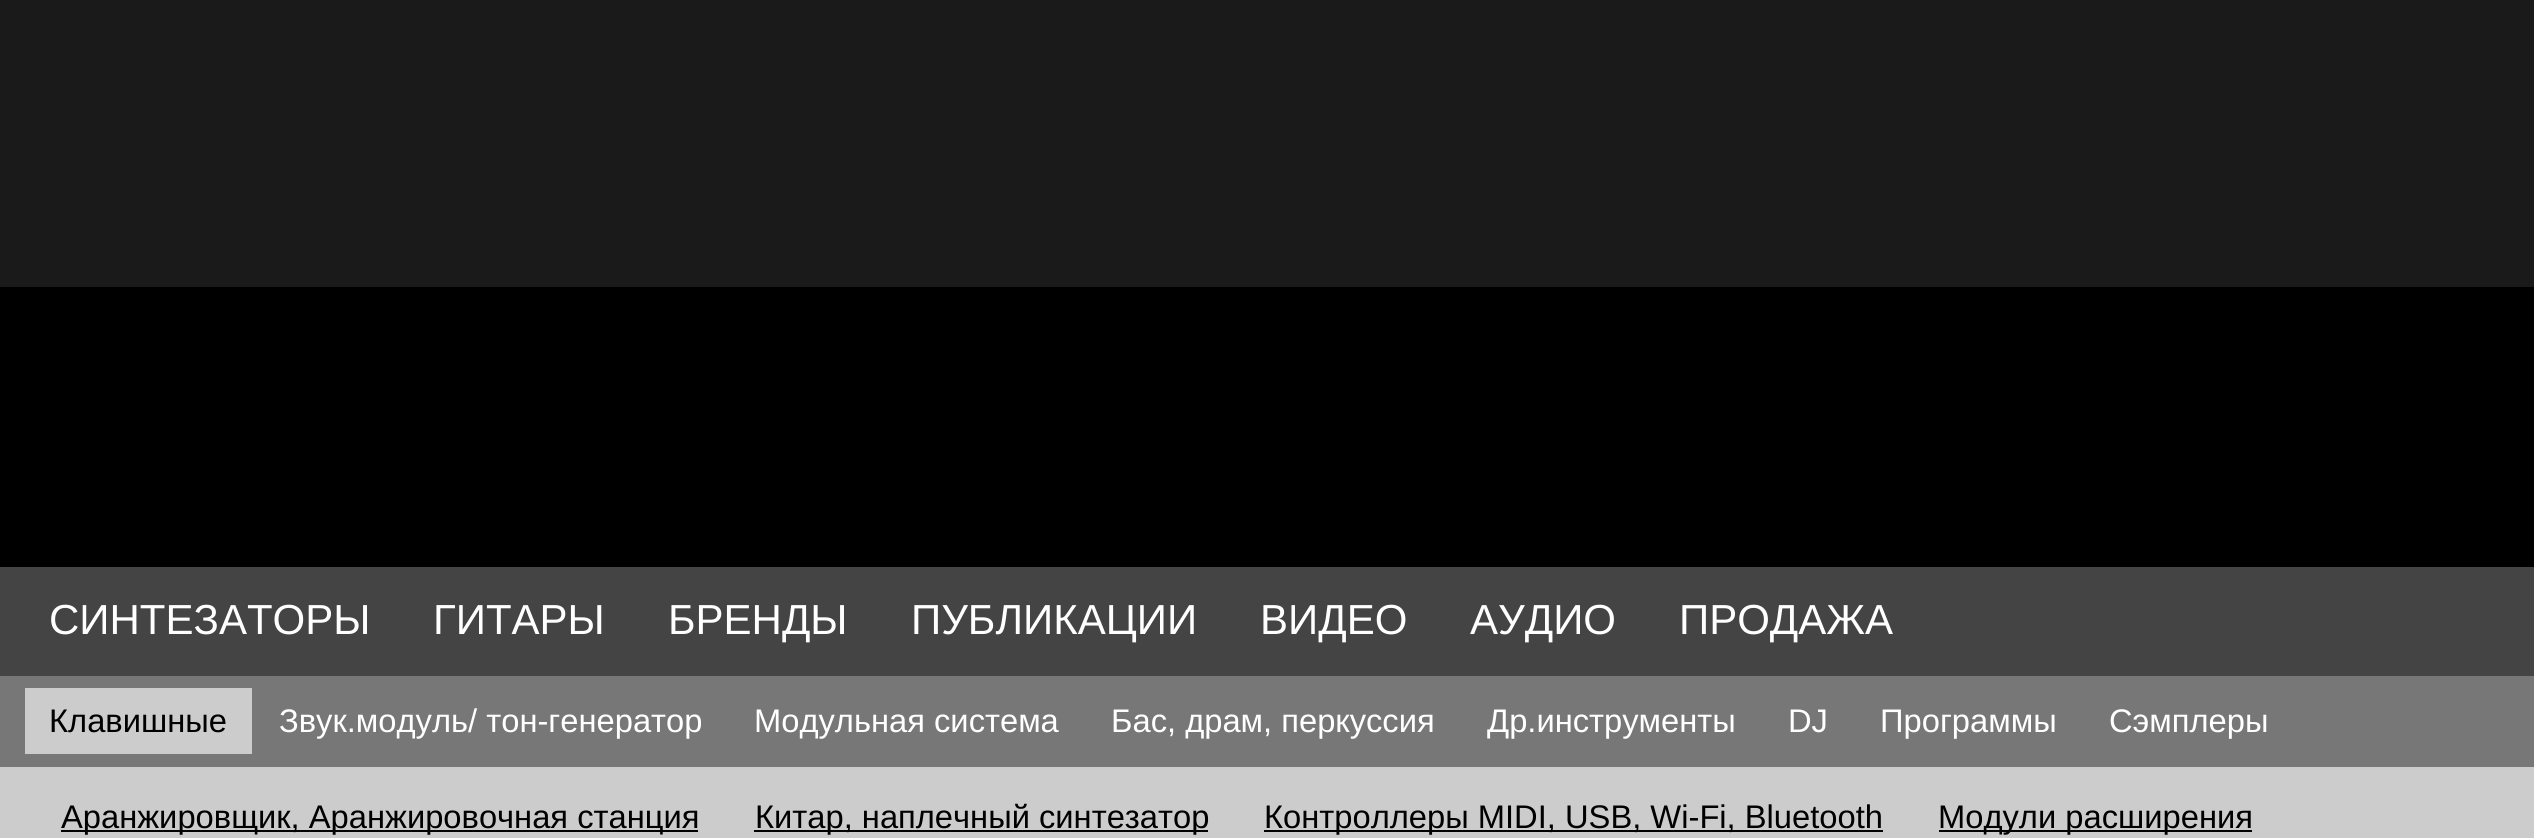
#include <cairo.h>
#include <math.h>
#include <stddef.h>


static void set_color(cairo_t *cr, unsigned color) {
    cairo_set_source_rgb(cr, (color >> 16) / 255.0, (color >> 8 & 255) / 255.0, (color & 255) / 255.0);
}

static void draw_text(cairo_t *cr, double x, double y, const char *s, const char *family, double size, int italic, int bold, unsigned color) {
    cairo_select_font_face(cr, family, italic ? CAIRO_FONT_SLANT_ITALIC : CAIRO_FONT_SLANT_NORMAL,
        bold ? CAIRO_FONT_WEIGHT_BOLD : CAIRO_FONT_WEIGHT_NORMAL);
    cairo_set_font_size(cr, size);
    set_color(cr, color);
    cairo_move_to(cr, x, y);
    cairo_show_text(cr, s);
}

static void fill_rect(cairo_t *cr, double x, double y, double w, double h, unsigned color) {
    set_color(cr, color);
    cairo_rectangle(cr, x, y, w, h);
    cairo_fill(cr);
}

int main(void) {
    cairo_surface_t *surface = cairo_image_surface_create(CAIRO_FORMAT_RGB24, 2534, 838);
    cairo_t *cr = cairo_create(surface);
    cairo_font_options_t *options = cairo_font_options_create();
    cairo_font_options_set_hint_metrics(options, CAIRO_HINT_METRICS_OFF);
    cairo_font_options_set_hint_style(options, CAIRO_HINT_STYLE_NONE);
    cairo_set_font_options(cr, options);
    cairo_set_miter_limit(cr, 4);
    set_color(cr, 0x000000);
    cairo_paint(cr);
    fill_rect(cr, 0, 0, 2534, 287, 0x1A1A1A);
    fill_rect(cr, 0, 567, 2534, 109, 0x444444);
    draw_text(cr, 49, 634, "СИНТЕЗАТОРЫ", "Liberation Sans", 42, 0, 0, 0xFFFFFF);
    draw_text(cr, 433, 634, "ГИТАРЫ", "Liberation Sans", 42, 0, 0, 0xFFFFFF);
    draw_text(cr, 668, 634, "БРЕНДЫ", "Liberation Sans", 42, 0, 0, 0xFFFFFF);
    draw_text(cr, 911, 634, "ПУБЛИКАЦИИ", "Liberation Sans", 42, 0, 0, 0xFFFFFF);
    draw_text(cr, 1260, 634, "ВИДЕО", "Liberation Sans", 42, 0, 0, 0xFFFFFF);
    draw_text(cr, 1470, 634, "АУДИО", "Liberation Sans", 42, 0, 0, 0xFFFFFF);
    draw_text(cr, 1679, 634, "ПРОДАЖА", "Liberation Sans", 42, 0, 0, 0xFFFFFF);
    fill_rect(cr, 0, 676, 2534, 91, 0x777777);
    fill_rect(cr, 25, 688, 227, 66, 0xCCCCCC);
    draw_text(cr, 49, 732, "Клавишные", "Liberation Sans", 32.7, 0, 0, 0x000000);
    draw_text(cr, 279, 732, "Звук.модуль/ тон-генератор", "Liberation Sans", 32.7, 0, 0, 0xFFFFFF);
    draw_text(cr, 754, 732, "Модульная система", "Liberation Sans", 32.7, 0, 0, 0xFFFFFF);
    draw_text(cr, 1111, 732, "Бас, драм, перкуссия", "Liberation Sans", 32.7, 0, 0, 0xFFFFFF);
    draw_text(cr, 1487, 732, "Др.инструменты", "Liberation Sans", 32.7, 0, 0, 0xFFFFFF);
    draw_text(cr, 1788, 732, "DJ", "Liberation Sans", 32.7, 0, 0, 0xFFFFFF);
    draw_text(cr, 1880, 732, "Программы", "Liberation Sans", 32.7, 0, 0, 0xFFFFFF);
    draw_text(cr, 2109, 732, "Сэмплеры", "Liberation Sans", 32.7, 0, 0, 0xFFFFFF);
    fill_rect(cr, 0, 767, 2534, 71, 0xCCCCCC);
    fill_rect(cr, 61, 830, 637, 2, 0x000000);
    draw_text(cr, 61, 828, "Аранжировщик, Аранжировочная станция", "Liberation Sans", 32.7, 0, 0, 0x000000);
    fill_rect(cr, 754, 830, 454, 2, 0x000000);
    draw_text(cr, 755, 828, "Китар, наплечный синтезатор", "Liberation Sans", 32.7, 0, 0, 0x000000);
    fill_rect(cr, 1264, 830, 619, 2, 0x000000);
    draw_text(cr, 1264, 828, "Контроллеры MIDI, USB, Wi-Fi, Bluetooth", "Liberation Sans", 32.7, 0, 0, 0x000000);
    fill_rect(cr, 1939, 830, 313, 2, 0x000000);
    draw_text(cr, 1938, 828, "Модули расширения", "Liberation Sans", 32.7, 0, 0, 0x000000);
    cairo_surface_write_to_png(surface, "output.png");
    cairo_font_options_destroy(options);
    cairo_destroy(cr);
    cairo_surface_destroy(surface);
    return 0;
}
